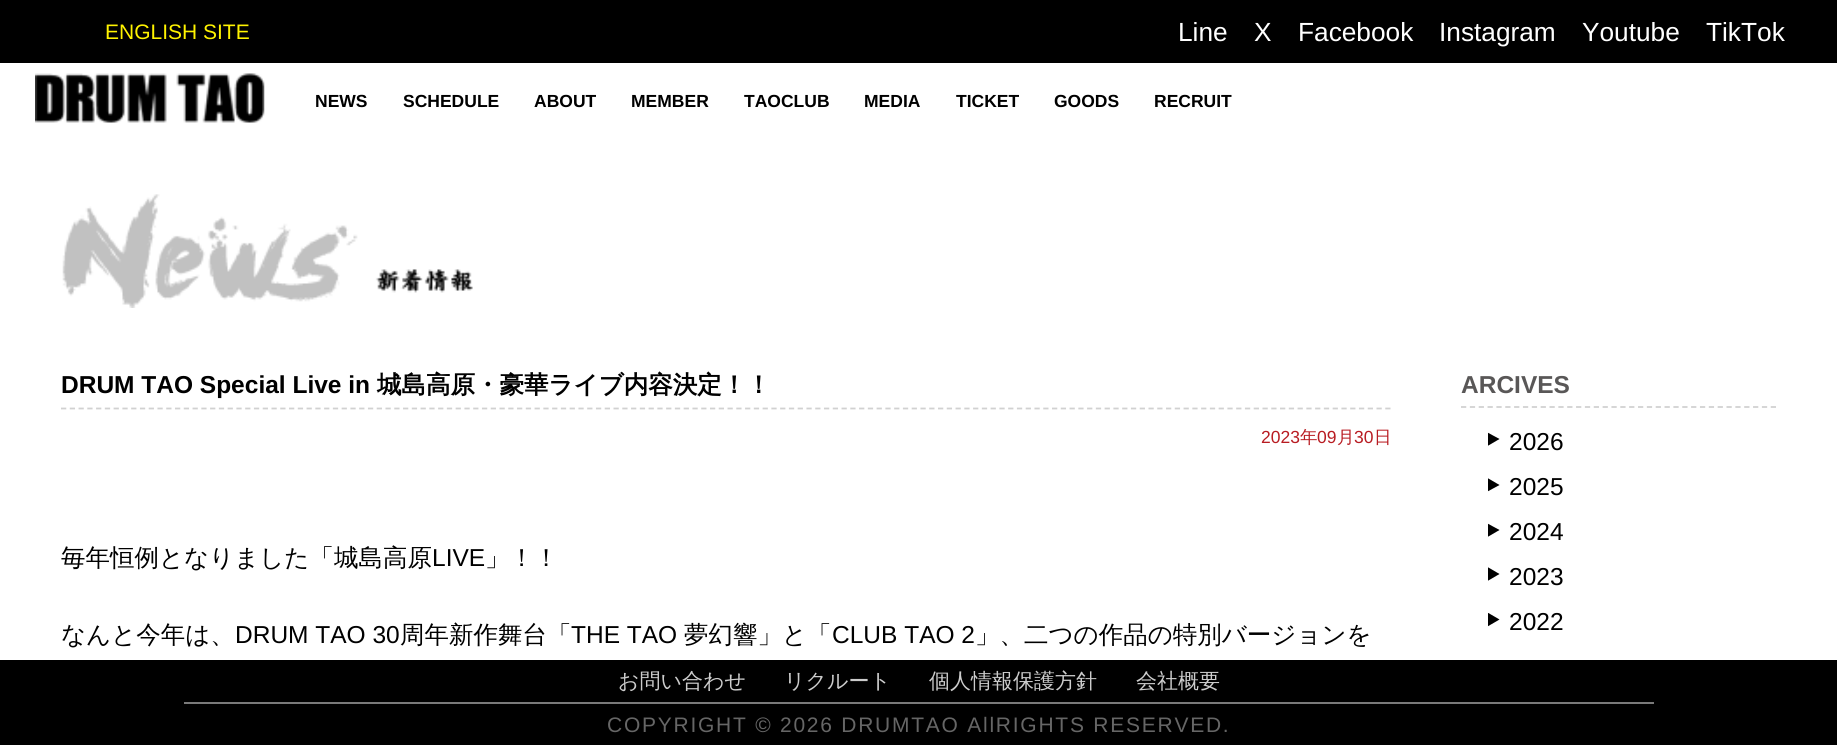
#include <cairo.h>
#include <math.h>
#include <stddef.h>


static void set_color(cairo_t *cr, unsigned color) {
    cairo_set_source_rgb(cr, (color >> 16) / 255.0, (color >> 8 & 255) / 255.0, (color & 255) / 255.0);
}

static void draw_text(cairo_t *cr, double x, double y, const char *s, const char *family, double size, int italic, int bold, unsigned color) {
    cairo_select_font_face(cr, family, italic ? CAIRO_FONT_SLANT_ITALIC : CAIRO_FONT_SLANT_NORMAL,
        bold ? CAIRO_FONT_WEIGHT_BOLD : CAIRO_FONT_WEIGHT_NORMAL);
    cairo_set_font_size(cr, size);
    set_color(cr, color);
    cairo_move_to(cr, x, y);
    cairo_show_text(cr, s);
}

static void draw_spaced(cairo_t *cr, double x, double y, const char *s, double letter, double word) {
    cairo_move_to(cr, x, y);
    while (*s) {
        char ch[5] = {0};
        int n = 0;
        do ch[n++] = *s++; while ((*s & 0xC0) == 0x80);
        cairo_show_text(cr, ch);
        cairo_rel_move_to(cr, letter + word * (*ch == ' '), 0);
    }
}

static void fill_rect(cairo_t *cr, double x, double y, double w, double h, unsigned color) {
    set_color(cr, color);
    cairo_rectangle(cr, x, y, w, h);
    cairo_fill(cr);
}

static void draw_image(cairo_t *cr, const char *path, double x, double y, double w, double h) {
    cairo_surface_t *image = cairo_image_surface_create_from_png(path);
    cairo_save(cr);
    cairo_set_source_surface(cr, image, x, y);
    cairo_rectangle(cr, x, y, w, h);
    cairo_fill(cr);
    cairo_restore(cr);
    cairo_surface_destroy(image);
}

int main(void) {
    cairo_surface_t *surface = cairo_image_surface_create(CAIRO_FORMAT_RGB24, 1837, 745);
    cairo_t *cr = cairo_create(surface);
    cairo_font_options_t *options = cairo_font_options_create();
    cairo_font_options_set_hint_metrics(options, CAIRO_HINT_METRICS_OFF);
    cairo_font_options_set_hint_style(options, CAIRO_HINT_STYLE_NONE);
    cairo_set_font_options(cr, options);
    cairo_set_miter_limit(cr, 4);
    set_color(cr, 0xFFFFFF);
    cairo_paint(cr);
    fill_rect(cr, 0, 0, 1837, 63, 0x000000);
    draw_text(cr, 105, 39, "ENGLISH SITE", "Liberation Sans", 21, 0, 0, 0xFFF300);
    draw_text(cr, 1178, 41, "Line", "Liberation Sans", 26.25, 0, 0, 0xFFFFFF);
    draw_text(cr, 1254, 41, "X", "Liberation Sans", 26.25, 0, 0, 0xFFFFFF);
    draw_text(cr, 1298, 41, "Facebook", "Liberation Sans", 26.25, 0, 0, 0xFFFFFF);
    draw_text(cr, 1439, 41, "Instagram", "Liberation Sans", 26.25, 0, 0, 0xFFFFFF);
    draw_text(cr, 1582, 41, "Youtube", "Liberation Sans", 26.25, 0, 0, 0xFFFFFF);
    draw_text(cr, 1706, 41, "TikTok", "Liberation Sans", 26.25, 0, 0, 0xFFFFFF);
    draw_image(cr, "assets/img1.png", 35, 73, 230, 50);
    draw_text(cr, 315, 107, "NEWS", "Liberation Sans", 17.5, 0, 1, 0x000000);
    draw_text(cr, 403, 107, "SCHEDULE", "Liberation Sans", 17.5, 0, 1, 0x000000);
    draw_text(cr, 534, 107, "ABOUT", "Liberation Sans", 17.5, 0, 1, 0x000000);
    draw_text(cr, 631, 107, "MEMBER", "Liberation Sans", 17.5, 0, 1, 0x000000);
    draw_text(cr, 744, 107, "TAOCLUB", "Liberation Sans", 17.5, 0, 1, 0x000000);
    draw_text(cr, 864, 107, "MEDIA", "Liberation Sans", 17.5, 0, 1, 0x000000);
    draw_text(cr, 956, 107, "TICKET", "Liberation Sans", 17.5, 0, 1, 0x000000);
    draw_text(cr, 1054, 107, "GOODS", "Liberation Sans", 17.5, 0, 1, 0x000000);
    draw_text(cr, 1154, 107, "RECRUIT", "Liberation Sans", 17.5, 0, 1, 0x000000);
    draw_image(cr, "assets/img2.png", 62, 194, 411, 114);
    cairo_new_path(cr);
    cairo_move_to(cr, 61, 408.5);
    cairo_line_to(cr, 1391, 408.5);
    set_color(cr, 0xD1D1D1);
    cairo_set_line_width(cr, 1.8);
    cairo_set_dash(cr, (double[]){5.25, 3.52}, 2, 0);
    cairo_stroke(cr);
    draw_text(cr, 61, 393, "DRUM TAO Special Live in", "Liberation Sans", 24.5, 0, 1, 0x000000);
    draw_text(cr, 377, 393, "城島高原・豪華ライブ内容決定！！", "WenQuanYi Zen Hei", 24.5, 0, 1, 0x000000);
    draw_text(cr, 1261, 443, "2023", "Liberation Sans", 17.5, 0, 0, 0xB81C22);
    draw_text(cr, 1300, 443, "年", "WenQuanYi Zen Hei Medium", 17.5, 0, 0, 0xB81C22);
    draw_text(cr, 1317, 443, "09", "Liberation Sans", 17.5, 0, 0, 0xB81C22);
    draw_text(cr, 1337, 443, "月", "WenQuanYi Zen Hei Medium", 17.5, 0, 0, 0xB81C22);
    draw_text(cr, 1354, 443, "30", "Liberation Sans", 17.5, 0, 0, 0xB81C22);
    draw_text(cr, 1374, 443, "日", "WenQuanYi Zen Hei Medium", 17.5, 0, 0, 0xB81C22);
    draw_text(cr, 61, 566, "毎年恒例となりました「城島高原", "WenQuanYi Zen Hei Medium", 24.5, 0, 0, 0x000000);
    draw_text(cr, 432, 566, "LIVE", "Liberation Sans", 24.5, 0, 0, 0x000000);
    draw_text(cr, 485, 566, "」！！", "WenQuanYi Zen Hei Medium", 24.5, 0, 0, 0x000000);
    draw_text(cr, 61, 643, "なんと今年は、", "WenQuanYi Zen Hei Medium", 24.5, 0, 0, 0x000000);
    draw_text(cr, 235, 643, "DRUM TAO 30", "Liberation Sans", 24.5, 0, 0, 0x000000);
    draw_text(cr, 400, 643, "周年新作舞台「", "WenQuanYi Zen Hei Medium", 24.5, 0, 0, 0x000000);
    draw_text(cr, 571, 643, "THE TAO", "Liberation Sans", 24.5, 0, 0, 0x000000);
    draw_text(cr, 684, 643, "夢幻響」と「", "WenQuanYi Zen Hei Medium", 24.5, 0, 0, 0x000000);
    draw_text(cr, 832, 643, "CLUB TAO 2", "Liberation Sans", 24.5, 0, 0, 0x000000);
    draw_text(cr, 975, 643, "」、二つの作品の特別バージョンを", "WenQuanYi Zen Hei Medium", 24.5, 0, 0, 0x000000);
    cairo_new_path(cr);
    cairo_move_to(cr, 1461, 407);
    cairo_line_to(cr, 1776, 407);
    set_color(cr, 0xD1D1D1);
    cairo_set_dash(cr, (double[]){5.25, 3.6}, 2, 0);
    cairo_stroke(cr);
    draw_text(cr, 1461, 393, "ARCIVES", "Liberation Sans", 24.5, 0, 1, 0x595757);
    cairo_save(cr);
    cairo_rectangle(cr, 1488, 432, 12, 14);
    cairo_clip(cr);
    set_color(cr, 0x000000);
    cairo_new_path(cr);
    cairo_move_to(cr, 1499.5, 439);
    cairo_line_to(cr, 1487.5, 432.5);
    cairo_line_to(cr, 1487.5, 446);
    cairo_close_path(cr);
    cairo_fill(cr);
    cairo_restore(cr);
    draw_text(cr, 1509, 450, "2026", "Liberation Sans", 24.5, 0, 0, 0x000000);
    cairo_save(cr);
    cairo_rectangle(cr, 1488, 478, 12, 14);
    cairo_clip(cr);
    cairo_new_path(cr);
    cairo_move_to(cr, 1499.5, 485);
    cairo_line_to(cr, 1487.5, 478);
    cairo_line_to(cr, 1487.5, 491.5);
    cairo_close_path(cr);
    cairo_fill(cr);
    cairo_restore(cr);
    draw_text(cr, 1509, 495, "2025", "Liberation Sans", 24.5, 0, 0, 0x000000);
    cairo_save(cr);
    cairo_rectangle(cr, 1488, 523, 12, 14);
    cairo_clip(cr);
    cairo_new_path(cr);
    cairo_move_to(cr, 1499.5, 530);
    cairo_line_to(cr, 1487.5, 523.5);
    cairo_line_to(cr, 1487.5, 537);
    cairo_close_path(cr);
    cairo_fill(cr);
    cairo_restore(cr);
    draw_text(cr, 1509, 540, "2024", "Liberation Sans", 24.5, 0, 0, 0x000000);
    cairo_save(cr);
    cairo_rectangle(cr, 1488, 567, 12, 14);
    cairo_clip(cr);
    cairo_new_path(cr);
    cairo_move_to(cr, 1499.5, 574);
    cairo_line_to(cr, 1487.5, 567);
    cairo_line_to(cr, 1487.5, 581);
    cairo_close_path(cr);
    cairo_fill(cr);
    cairo_restore(cr);
    draw_text(cr, 1509, 585, "2023", "Liberation Sans", 24.5, 0, 0, 0x000000);
    cairo_save(cr);
    cairo_rectangle(cr, 1488, 613, 12, 14);
    cairo_clip(cr);
    cairo_new_path(cr);
    cairo_move_to(cr, 1499.5, 619.5);
    cairo_line_to(cr, 1487.5, 612.5);
    cairo_line_to(cr, 1487.5, 626.5);
    cairo_close_path(cr);
    cairo_fill(cr);
    cairo_restore(cr);
    draw_text(cr, 1509, 630, "2022", "Liberation Sans", 24.5, 0, 0, 0x000000);
    fill_rect(cr, 0, 660, 1837, 85, 0x000000);
    draw_text(cr, 618, 688, "お問い合わせ", "WenQuanYi Zen Hei Medium", 21, 0, 0, 0xCCCCCC);
    draw_text(cr, 784, 688, "リクルート", "WenQuanYi Zen Hei Medium", 21, 0, 0, 0xCCCCCC);
    draw_text(cr, 929, 688, "個人情報保護方針", "WenQuanYi Zen Hei Medium", 21, 0, 0, 0xCCCCCC);
    draw_text(cr, 1136, 688, "会社概要", "WenQuanYi Zen Hei Medium", 21, 0, 0, 0xCCCCCC);
    fill_rect(cr, 184, 702, 1470, 2, 0x797979);
    cairo_select_font_face(cr, "Liberation Sans", CAIRO_FONT_SLANT_NORMAL, CAIRO_FONT_WEIGHT_NORMAL);
    set_color(cr, 0x666666);
    draw_spaced(cr, 607, 732, "COPYRIGHT © 2026 DRUMTAO AllRIGHTS RESERVED.", 1.75, 0);
    cairo_surface_write_to_png(surface, "output.png");
    cairo_font_options_destroy(options);
    cairo_destroy(cr);
    cairo_surface_destroy(surface);
    return 0;
}
